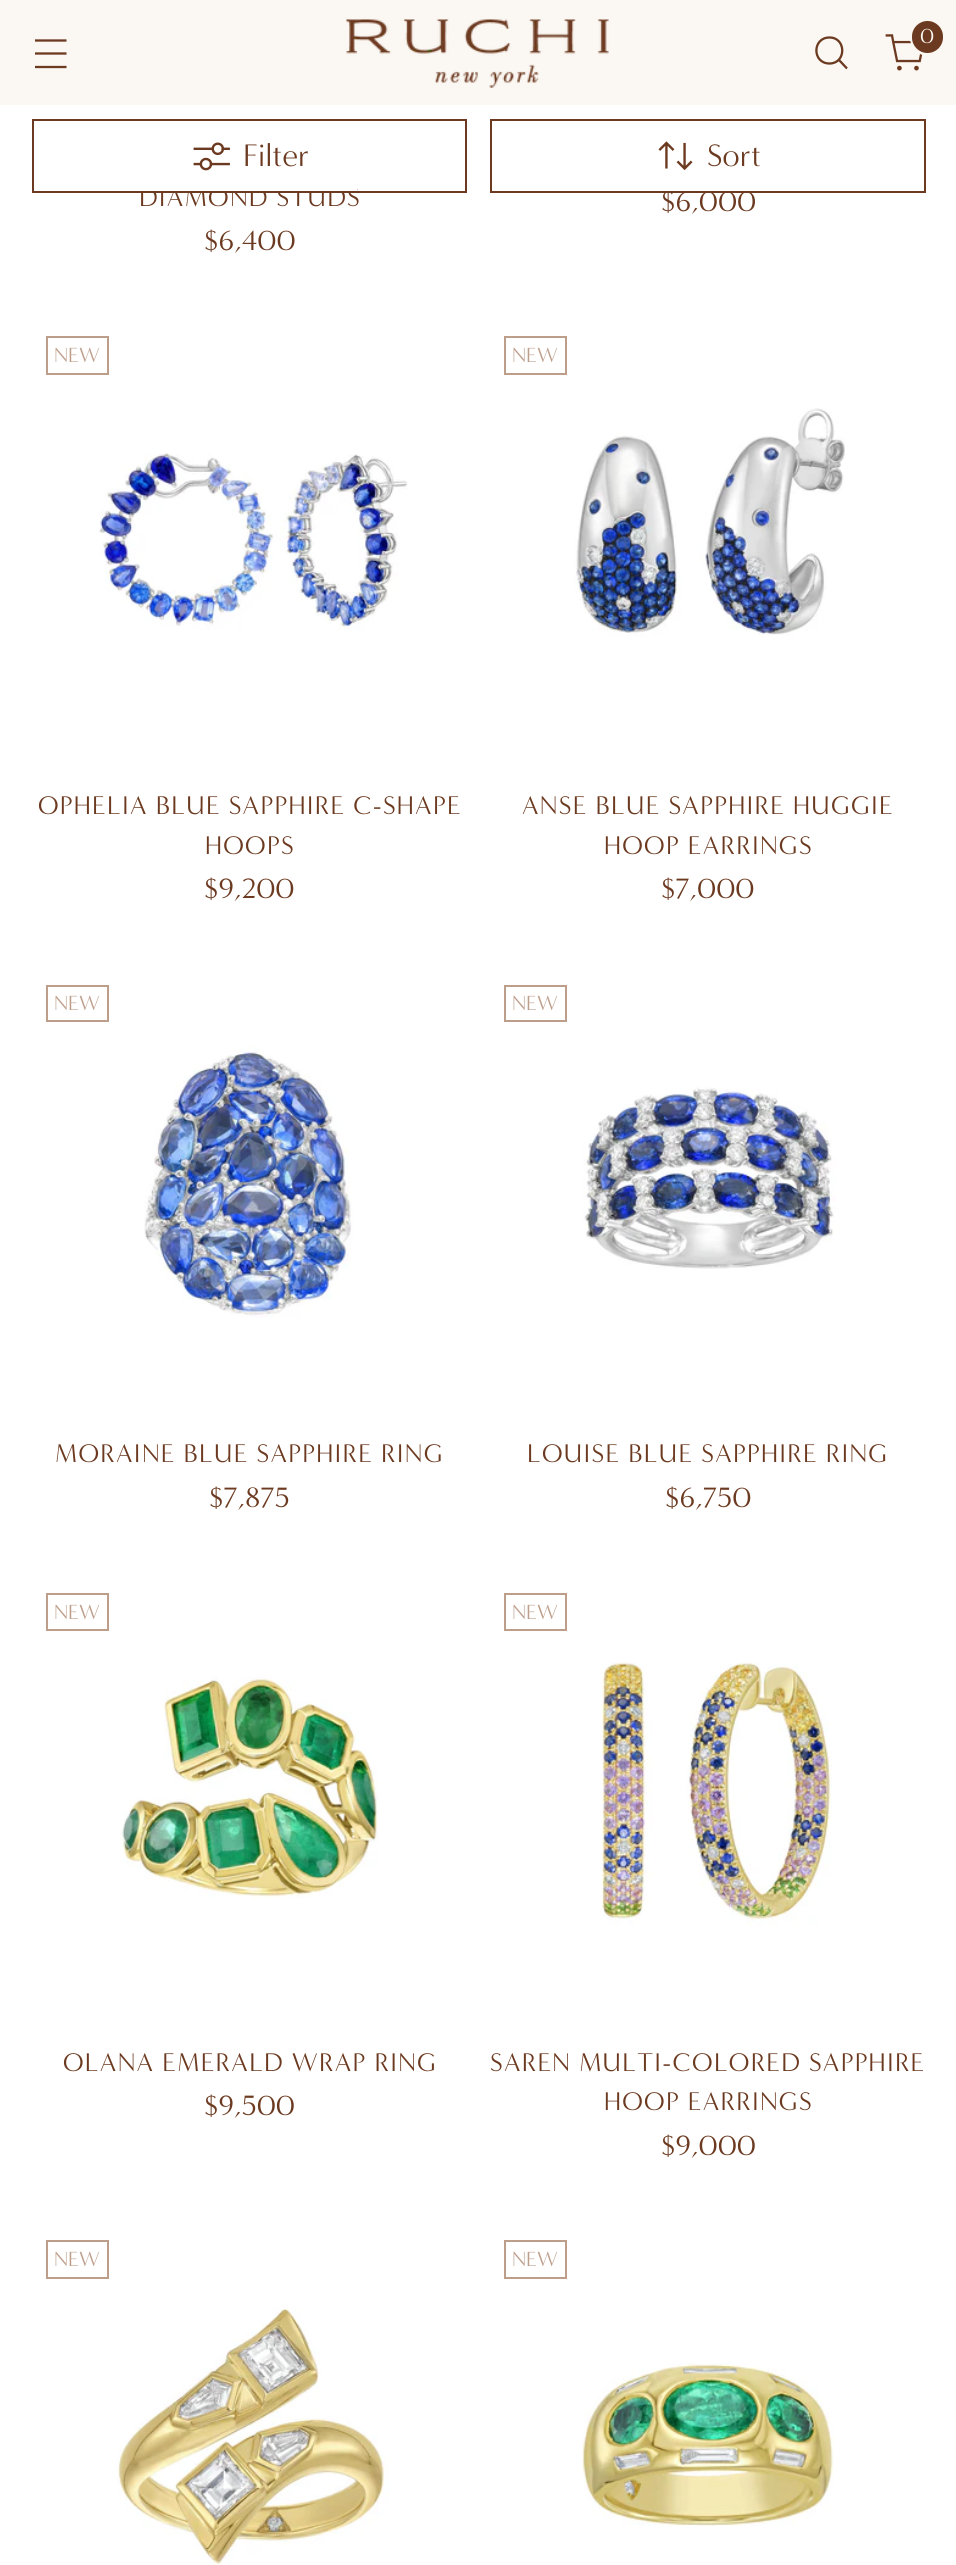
#include <cairo.h>
#include <math.h>
#include <stddef.h>


static void set_color(cairo_t *cr, unsigned color) {
    cairo_set_source_rgb(cr, (color >> 16) / 255.0, (color >> 8 & 255) / 255.0, (color & 255) / 255.0);
}

static void draw_text(cairo_t *cr, double x, double y, const char *s, const char *family, double size, int italic, int bold, unsigned color) {
    cairo_select_font_face(cr, family, italic ? CAIRO_FONT_SLANT_ITALIC : CAIRO_FONT_SLANT_NORMAL,
        bold ? CAIRO_FONT_WEIGHT_BOLD : CAIRO_FONT_WEIGHT_NORMAL);
    cairo_set_font_size(cr, size);
    set_color(cr, color);
    cairo_move_to(cr, x, y);
    cairo_show_text(cr, s);
}

static void draw_spaced(cairo_t *cr, double x, double y, const char *s, double letter, double word) {
    cairo_move_to(cr, x, y);
    while (*s) {
        char ch[5] = {0};
        int n = 0;
        do ch[n++] = *s++; while ((*s & 0xC0) == 0x80);
        cairo_show_text(cr, ch);
        cairo_rel_move_to(cr, letter + word * (*ch == ' '), 0);
    }
}

static void fill_rect(cairo_t *cr, double x, double y, double w, double h, unsigned color) {
    set_color(cr, color);
    cairo_rectangle(cr, x, y, w, h);
    cairo_fill(cr);
}

static void rounded_rect(cairo_t *cr, double x, double y, double w, double h, double r) {
    cairo_new_sub_path(cr);
    cairo_arc(cr, x + w - r, y + h - r, r, 0, M_PI / 2);
    cairo_arc(cr, x + r, y + h - r, r, M_PI / 2, M_PI);
    cairo_arc(cr, x + r, y + r, r, M_PI, 1.5 * M_PI);
    cairo_arc(cr, x + w - r, y + r, r, 1.5 * M_PI, 2 * M_PI);
    cairo_close_path(cr);
}

static void draw_image(cairo_t *cr, const char *path, double x, double y, double w, double h) {
    cairo_surface_t *image = cairo_image_surface_create_from_png(path);
    cairo_save(cr);
    cairo_set_source_surface(cr, image, x, y);
    cairo_rectangle(cr, x, y, w, h);
    cairo_fill(cr);
    cairo_restore(cr);
    cairo_surface_destroy(image);
}

int main(void) {
    cairo_surface_t *surface = cairo_image_surface_create(CAIRO_FORMAT_RGB24, 956, 2565);
    cairo_t *cr = cairo_create(surface);
    cairo_font_options_t *options = cairo_font_options_create();
    cairo_font_options_set_hint_metrics(options, CAIRO_HINT_METRICS_OFF);
    cairo_font_options_set_hint_style(options, CAIRO_HINT_STYLE_NONE);
    cairo_set_font_options(cr, options);
    cairo_set_miter_limit(cr, 4);
    set_color(cr, 0xFFFFFF);
    cairo_paint(cr);
    fill_rect(cr, 0, 0, 956, 105, 0xFBF7F2);
    draw_image(cr, "assets/img1.png", 346, 19, 263, 69);
    cairo_new_path(cr);
    cairo_move_to(cr, 829.5, 63.5);
    cairo_curve_to(cr, 846.5, 63.5, 846.5, 37.5, 829.5, 37.5);
    cairo_curve_to(cr, 812, 37.5, 812, 63.5, 829.5, 63.5);
    cairo_close_path(cr);
    set_color(cr, 0x6C3A20);
    cairo_set_line_width(cr, 2.3);
    cairo_set_line_cap(cr, CAIRO_LINE_CAP_ROUND);
    cairo_stroke(cr);
    cairo_new_path(cr);
    cairo_move_to(cr, 839, 60);
    cairo_line_to(cr, 847, 68.5);
    cairo_set_line_cap(cr, CAIRO_LINE_CAP_BUTT);
    cairo_stroke(cr);
    draw_image(cr, "assets/img2.png", 885, 34, 38, 37);
    cairo_arc(cr, 928.5, 37.5, 17, 0, 2 * M_PI);
    set_color(cr, 0xFBF7F2);
    cairo_set_line_width(cr, 3);
    cairo_stroke(cr);
    set_color(cr, 0x6C3A20);
    rounded_rect(cr, 912, 21, 31, 32, 15.5);
    cairo_fill(cr);
    draw_text(cr, 920, 43, "0", "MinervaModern", 21, 0, 0, 0xFBF7F2);
    cairo_new_path(cr);
    cairo_move_to(cr, 35, 53.5);
    cairo_line_to(cr, 66.5, 53.5);
    cairo_move_to(cr, 35, 40.5);
    cairo_line_to(cr, 66.5, 40.5);
    cairo_move_to(cr, 35, 67);
    cairo_line_to(cr, 66.5, 67);
    set_color(cr, 0x6C3A20);
    cairo_set_line_width(cr, 2.3);
    cairo_stroke(cr);
    cairo_set_font_size(cr, 26.25);
    draw_spaced(cr, 139, 206, "DIAMOND STUDS", 1.3, 0);
    fill_rect(cr, 140, 188, 217, 3, 0xFFFFFF);
    cairo_rectangle(cr, 33, 120, 433, 72);
    set_color(cr, 0x6C3A20);
    cairo_set_line_width(cr, 2);
    cairo_stroke(cr);
    draw_image(cr, "assets/img3.png", 193, 142, 37, 29);
    draw_text(cr, 243, 166, "Filter", "MinervaModern", 32, 0, 0, 0x6C3A20);
    draw_text(cr, 661, 211, "$6,000", "MinervaModern", 28.5, 0, 0, 0x6C3A20);
    fill_rect(cr, 667, 190, 2, 1, 0xFFFFFF);
    cairo_rectangle(cr, 491, 120, 434, 72);
    set_color(cr, 0x6C3A20);
    cairo_stroke(cr);
    draw_image(cr, "assets/img4.png", 658, 141, 35, 30);
    draw_text(cr, 707, 166, "Sort", "MinervaModern", 32, 0, 0, 0x6C3A20);
    draw_text(cr, 204, 250, "$6,400", "MinervaModern", 28.5, 0, 0, 0x6C3A20);
    cairo_rectangle(cr, 47, 337, 61, 37);
    set_color(cr, 0xBD9E8B);
    cairo_stroke(cr);
    draw_text(cr, 54, 362, "NEW", "MinervaModern", 21, 0, 0, 0xBD9E8B);
    draw_image(cr, "assets/img5.png", 99, 453, 309, 177);
    cairo_set_font_size(cr, 26.25);
    set_color(cr, 0x6C3A20);
    draw_spaced(cr, 38, 814, "OPHELIA BLUE SAPPHIRE C-SHAPE", 1.3, 0);
    draw_spaced(cr, 205, 854, "HOOPS", 1.3, 0);
    draw_text(cr, 204, 898, "$9,200", "MinervaModern", 28.5, 0, 0, 0x6C3A20);
    cairo_rectangle(cr, 505, 337, 61, 37);
    set_color(cr, 0xBD9E8B);
    cairo_stroke(cr);
    draw_text(cr, 512, 362, "NEW", "MinervaModern", 21, 0, 0, 0xBD9E8B);
    draw_image(cr, "assets/img6.png", 574, 408, 271, 229);
    cairo_set_font_size(cr, 26.25);
    set_color(cr, 0x6C3A20);
    draw_spaced(cr, 522, 814, "ANSE BLUE SAPPHIRE HUGGIE", 1.3, 0);
    draw_spaced(cr, 604, 854, "HOOP EARRINGS", 1.3, 0);
    draw_text(cr, 661, 898, "$7,000", "MinervaModern", 28.5, 0, 0, 0x6C3A20);
    cairo_rectangle(cr, 47, 986, 61, 35);
    set_color(cr, 0xBD9E8B);
    cairo_stroke(cr);
    draw_text(cr, 54, 1010, "NEW", "MinervaModern", 21, 0, 0, 0xBD9E8B);
    draw_image(cr, "assets/img7.png", 144, 1046, 209, 272);
    cairo_set_font_size(cr, 26.25);
    set_color(cr, 0x6C3A20);
    draw_spaced(cr, 55, 1462, "MORAINE BLUE SAPPHIRE RING", 1.3, 0);
    draw_text(cr, 209, 1507, "$7,875", "MinervaModern", 28.5, 0, 0, 0x6C3A20);
    cairo_rectangle(cr, 505, 986, 61, 35);
    set_color(cr, 0xBD9E8B);
    cairo_stroke(cr);
    draw_text(cr, 512, 1010, "NEW", "MinervaModern", 21, 0, 0, 0xBD9E8B);
    draw_image(cr, "assets/img8.png", 583, 1087, 254, 182);
    cairo_set_font_size(cr, 26.25);
    set_color(cr, 0x6C3A20);
    draw_spaced(cr, 527, 1462, "LOUISE BLUE SAPPHIRE RING", 1.3, 0);
    draw_text(cr, 665, 1507, "$6,750", "MinervaModern", 28.5, 0, 0, 0x6C3A20);
    cairo_rectangle(cr, 47, 1594, 61, 36);
    set_color(cr, 0xBD9E8B);
    cairo_stroke(cr);
    draw_text(cr, 54, 1619, "NEW", "MinervaModern", 21, 0, 0, 0xBD9E8B);
    draw_image(cr, "assets/img9.png", 120, 1677, 259, 221);
    cairo_set_font_size(cr, 26.25);
    set_color(cr, 0x6C3A20);
    draw_spaced(cr, 63, 2071, "OLANA EMERALD WRAP RING", 1.3, 0);
    draw_text(cr, 204, 2115, "$9,500", "MinervaModern", 28.5, 0, 0, 0x6C3A20);
    cairo_rectangle(cr, 505, 1594, 61, 36);
    set_color(cr, 0xBD9E8B);
    cairo_stroke(cr);
    draw_text(cr, 512, 1619, "NEW", "MinervaModern", 21, 0, 0, 0xBD9E8B);
    draw_image(cr, "assets/img10.png", 602, 1662, 230, 264);
    cairo_set_font_size(cr, 26.25);
    set_color(cr, 0x6C3A20);
    draw_spaced(cr, 490, 2071, "SAREN MULTI-COLORED SAPPHIRE", 1.3, 0);
    draw_spaced(cr, 604, 2110, "HOOP EARRINGS", 1.3, 0);
    draw_text(cr, 661, 2155, "$9,000", "MinervaModern", 28.5, 0, 0, 0x6C3A20);
    cairo_rectangle(cr, 47, 2241, 61, 37);
    set_color(cr, 0xBD9E8B);
    cairo_stroke(cr);
    draw_text(cr, 54, 2266, "NEW", "MinervaModern", 21, 0, 0, 0xBD9E8B);
    draw_image(cr, "assets/img11.png", 117, 2308, 272, 257);
    cairo_rectangle(cr, 505, 2241, 61, 37);
    cairo_stroke(cr);
    draw_text(cr, 512, 2266, "NEW", "MinervaModern", 21, 0, 0, 0xBD9E8B);
    draw_image(cr, "assets/img12.png", 582, 2363, 252, 163);
    cairo_surface_write_to_png(surface, "output.png");
    cairo_font_options_destroy(options);
    cairo_destroy(cr);
    cairo_surface_destroy(surface);
    return 0;
}
